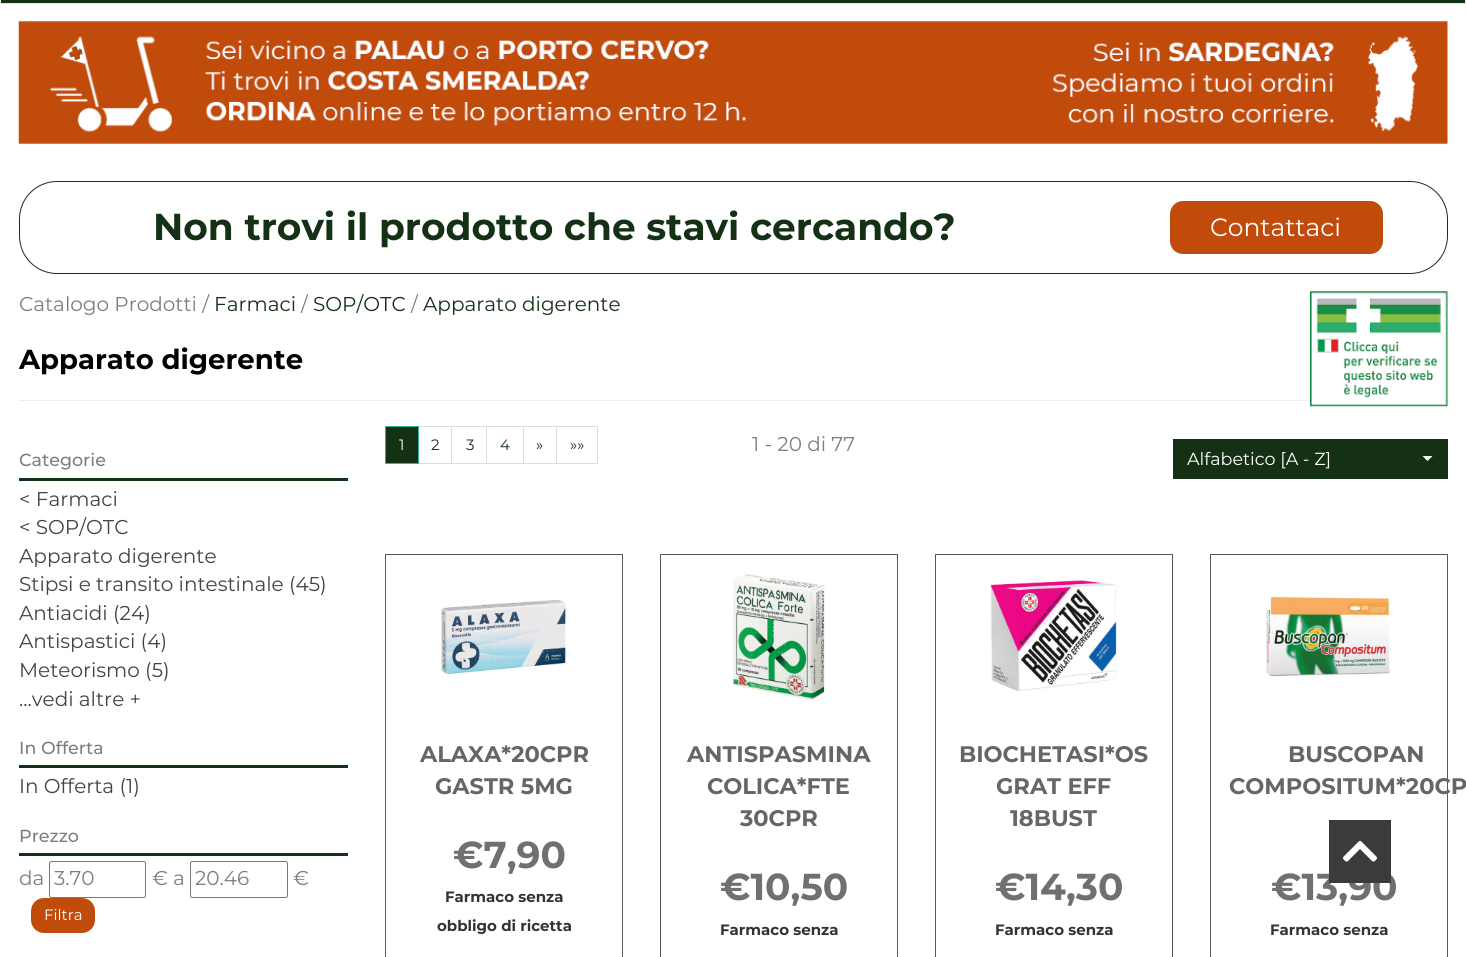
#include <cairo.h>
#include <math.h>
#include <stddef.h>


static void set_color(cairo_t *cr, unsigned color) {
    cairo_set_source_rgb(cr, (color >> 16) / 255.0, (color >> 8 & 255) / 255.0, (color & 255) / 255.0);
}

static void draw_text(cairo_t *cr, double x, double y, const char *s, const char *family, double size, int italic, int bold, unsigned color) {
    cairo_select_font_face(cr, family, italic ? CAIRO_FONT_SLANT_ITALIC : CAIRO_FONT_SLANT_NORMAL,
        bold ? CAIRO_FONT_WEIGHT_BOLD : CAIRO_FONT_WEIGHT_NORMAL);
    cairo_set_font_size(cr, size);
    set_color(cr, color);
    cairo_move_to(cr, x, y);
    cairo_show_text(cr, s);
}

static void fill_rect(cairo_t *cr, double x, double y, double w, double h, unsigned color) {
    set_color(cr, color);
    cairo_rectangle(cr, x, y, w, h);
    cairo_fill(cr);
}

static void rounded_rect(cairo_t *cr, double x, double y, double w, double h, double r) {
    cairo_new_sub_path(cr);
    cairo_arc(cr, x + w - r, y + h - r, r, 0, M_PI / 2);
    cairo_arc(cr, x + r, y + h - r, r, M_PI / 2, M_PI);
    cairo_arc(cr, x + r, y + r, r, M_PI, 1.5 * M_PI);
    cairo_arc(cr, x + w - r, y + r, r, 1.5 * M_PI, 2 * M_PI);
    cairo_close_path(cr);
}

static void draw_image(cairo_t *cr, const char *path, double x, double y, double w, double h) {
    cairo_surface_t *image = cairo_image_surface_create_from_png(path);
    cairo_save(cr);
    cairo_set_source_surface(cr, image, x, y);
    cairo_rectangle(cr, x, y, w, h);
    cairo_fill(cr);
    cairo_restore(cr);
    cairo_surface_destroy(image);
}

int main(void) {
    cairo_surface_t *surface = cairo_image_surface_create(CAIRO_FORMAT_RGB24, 1466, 957);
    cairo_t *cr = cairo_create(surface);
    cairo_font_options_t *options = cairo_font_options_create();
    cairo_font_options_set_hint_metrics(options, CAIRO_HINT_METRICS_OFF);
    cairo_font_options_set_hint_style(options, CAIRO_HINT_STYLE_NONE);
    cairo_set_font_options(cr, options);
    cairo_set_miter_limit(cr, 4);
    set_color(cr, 0xFFFFFF);
    cairo_paint(cr);
    set_color(cr, 0x153115);
    cairo_rectangle(cr, 0.5, -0.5, 1465, 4);
    cairo_fill_preserve(cr);
    set_color(cr, 0xE7E7E7);
    cairo_set_line_width(cr, 1);
    cairo_stroke(cr);
    draw_image(cr, "assets/img1.png", 18, 21, 1430, 123);
    rounded_rect(cr, 19.5, 181.5, 1428, 92, 37.5);
    set_color(cr, 0x153115);
    cairo_stroke(cr);
    draw_text(cr, 153, 240, "Non trovi il prodotto che stavi cercando?", "Montserrat", 37.5, 0, 1, 0x153115);
    set_color(cr, 0xC14B0B);
    rounded_rect(cr, 1170, 201, 213, 53, 13);
    cairo_fill(cr);
    draw_text(cr, 1210, 236, "Contattaci", "Montserrat", 25, 0, 0, 0xFFFFFF);
    draw_text(cr, 19, 311, "Catalogo Prodotti /", "Montserrat", 20, 0, 0, 0x7E7E7E);
    draw_text(cr, 214, 311, "Farmaci", "Montserrat", 20, 0, 0, 0x153115);
    draw_text(cr, 301, 311, "/", "Montserrat", 20, 0, 0, 0x7E7E7E);
    draw_text(cr, 313, 311, "SOP/OTC", "Montserrat", 20, 0, 0, 0x153115);
    draw_text(cr, 411, 311, "/", "Montserrat", 20, 0, 0, 0x7E7E7E);
    draw_text(cr, 423, 311, "Apparato digerente", "Montserrat", 20, 0, 0, 0x153115);
    draw_image(cr, "assets/img2.png", 1310, 291, 138, 116);
    draw_text(cr, 19, 369, "Apparato digerente", "Montserrat", 27.5, 0, 1, 0x010102);
    fill_rect(cr, 19, 400, 1291, 1, 0xEEEEEE);
    draw_text(cr, 19, 466, "Categorie", "Montserrat Medium", 17.5, 0, 0, 0x7E7E7E);
    fill_rect(cr, 19, 478, 329, 3, 0x153115);
    draw_text(cr, 19, 506, "< Farmaci", "Montserrat", 20, 0, 0, 0x444444);
    draw_text(cr, 19, 534, "< SOP/OTC", "Montserrat", 20, 0, 0, 0x444444);
    draw_text(cr, 19, 563, "Apparato digerente", "Montserrat", 20, 0, 0, 0x444444);
    draw_text(cr, 19, 591, "Stipsi e transito intestinale (45)", "Montserrat", 20, 0, 0, 0x444444);
    draw_text(cr, 19, 620, "Antiacidi (24)", "Montserrat", 20, 0, 0, 0x444444);
    draw_text(cr, 19, 648, "Antispastici (4)", "Montserrat", 20, 0, 0, 0x444444);
    draw_text(cr, 19, 677, "Meteorismo (5)", "Montserrat", 20, 0, 0, 0x444444);
    draw_text(cr, 19, 706, "...vedi altre +", "Montserrat", 20, 0, 0, 0x444444);
    draw_text(cr, 19, 754, "In Offerta", "Montserrat Medium", 17.5, 0, 0, 0x7E7E7E);
    fill_rect(cr, 19, 765, 329, 3, 0x153115);
    draw_text(cr, 19, 793, "In Offerta (1)", "Montserrat", 20, 0, 0, 0x444444);
    draw_text(cr, 19, 842, "Prezzo", "Montserrat Medium", 17.5, 0, 0, 0x7E7E7E);
    fill_rect(cr, 19, 853, 329, 3, 0x153115);
    draw_text(cr, 19, 885, "da", "Montserrat", 20, 0, 0, 0x7E7E7E);
    rounded_rect(cr, 49.5, 861.5, 96, 36, 2);
    set_color(cr, 0x767676);
    cairo_stroke(cr);
    draw_text(cr, 54, 885, "3.70", "Montserrat", 20, 0, 0, 0x7E7E7E);
    draw_text(cr, 152, 885, "€ a", "Montserrat", 20, 0, 0, 0x7E7E7E);
    rounded_rect(cr, 190.5, 861.5, 97, 36, 2);
    set_color(cr, 0x767676);
    cairo_stroke(cr);
    draw_text(cr, 195, 885, "20.46", "Montserrat", 20, 0, 0, 0x7E7E7E);
    draw_text(cr, 293, 885, "€", "Montserrat", 20, 0, 0, 0x7E7E7E);
    set_color(cr, 0xC14B0B);
    rounded_rect(cr, 31, 898, 64, 35, 13);
    cairo_fill(cr);
    draw_text(cr, 44, 920, "Filtra", "Montserrat", 15, 0, 0, 0xFFFFFF);
    cairo_rectangle(cr, 418.5, 426.5, 34, 37);
    set_color(cr, 0xDDDDDD);
    cairo_stroke(cr);
    set_color(cr, 0x153115);
    cairo_rectangle(cr, 385.5, 426.5, 33, 37);
    cairo_fill_preserve(cr);
    set_color(cr, 0x38B098);
    cairo_stroke(cr);
    draw_text(cr, 399, 450, "1", "Montserrat", 15, 0, 0, 0xFFFFFF);
    draw_text(cr, 431, 450, "2", "Montserrat", 15, 0, 0, 0x153115);
    fill_rect(cr, 452, 427, 1, 36, 0xFFFFFF);
    cairo_rectangle(cr, 451.5, 426.5, 36, 37);
    set_color(cr, 0xDDDDDD);
    cairo_stroke(cr);
    draw_text(cr, 466, 450, "3", "Montserrat", 15, 0, 0, 0x153115);
    fill_rect(cr, 487, 427, 1, 36, 0xFFFFFF);
    cairo_rectangle(cr, 486.5, 426.5, 37, 37);
    set_color(cr, 0xDDDDDD);
    cairo_stroke(cr);
    draw_text(cr, 500, 450, "4", "Montserrat", 15, 0, 0, 0x153115);
    cairo_rectangle(cr, 523.5, 426.5, 34, 37);
    set_color(cr, 0xDDDDDD);
    cairo_stroke(cr);
    draw_text(cr, 536, 450, "»", "Montserrat", 15, 0, 0, 0x153115);
    fill_rect(cr, 557, 427, 1, 36, 0xFFFFFF);
    cairo_rectangle(cr, 556.5, 426.5, 41, 37);
    set_color(cr, 0xDDDDDD);
    cairo_stroke(cr);
    draw_text(cr, 570, 450, "»»", "Montserrat", 15, 0, 0, 0x153115);
    draw_text(cr, 752, 451, "1 - 20 di 77", "Montserrat", 20, 0, 0, 0x7E7E7E);
    fill_rect(cr, 1173, 439, 275, 40, 0x153115);
    draw_text(cr, 1187, 465, "Alfabetico [A - Z]", "Montserrat", 17.5, 0, 0, 0xFFFFFF);
    cairo_new_path(cr);
    cairo_move_to(cr, 1422.5, 456);
    cairo_line_to(cr, 1432.5, 456);
    cairo_line_to(cr, 1427.5, 461);
    cairo_close_path(cr);
    cairo_fill(cr);
    cairo_rectangle(cr, 385.5, 554.5, 237, 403);
    set_color(cr, 0x575755);
    cairo_stroke(cr);
    draw_image(cr, "assets/img3.png", 441, 599, 125, 76);
    draw_text(cr, 420, 762, "ALAXA*20CPR", "Montserrat", 22.5, 0, 1, 0x666666);
    draw_text(cr, 435, 794, "GASTR 5MG", "Montserrat", 22.5, 0, 1, 0x666666);
    draw_text(cr, 453, 868, "€7,90", "Montserrat", 37.5, 0, 1, 0x707070);
    draw_text(cr, 445, 902, "Farmaco senza", "Montserrat", 15, 0, 1, 0x333333);
    draw_text(cr, 437, 931, "obbligo di ricetta", "Montserrat", 15, 0, 1, 0x333333);
    cairo_rectangle(cr, 660.5, 554.5, 237, 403);
    set_color(cr, 0x575755);
    cairo_stroke(cr);
    draw_image(cr, "assets/img4.png", 733, 574, 92, 127);
    draw_text(cr, 687, 762, "ANTISPASMINA", "Montserrat", 22.5, 0, 1, 0x666666);
    draw_text(cr, 707, 794, "COLICA*FTE", "Montserrat", 22.5, 0, 1, 0x666666);
    draw_text(cr, 740, 826, "30CPR", "Montserrat", 22.5, 0, 1, 0x666666);
    draw_text(cr, 720, 900, "€10,50", "Montserrat", 37.5, 0, 1, 0x707070);
    draw_text(cr, 720, 935, "Farmaco senza", "Montserrat", 15, 0, 1, 0x333333);
    cairo_rectangle(cr, 935.5, 554.5, 237, 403);
    set_color(cr, 0x575755);
    cairo_stroke(cr);
    draw_image(cr, "assets/img5.png", 990, 579, 127, 112);
    draw_text(cr, 959, 762, "BIOCHETASI*OS", "Montserrat", 22.5, 0, 1, 0x666666);
    draw_text(cr, 996, 794, "GRAT EFF", "Montserrat", 22.5, 0, 1, 0x666666);
    draw_text(cr, 1010, 826, "18BUST", "Montserrat", 22.5, 0, 1, 0x666666);
    draw_text(cr, 995, 900, "€14,30", "Montserrat", 37.5, 0, 1, 0x707070);
    draw_text(cr, 995, 935, "Farmaco senza", "Montserrat", 15, 0, 1, 0x333333);
    cairo_rectangle(cr, 1210.5, 554.5, 237, 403);
    set_color(cr, 0x575755);
    cairo_stroke(cr);
    draw_image(cr, "assets/img6.png", 1266, 596, 124, 81);
    draw_text(cr, 1288, 762, "BUSCOPAN", "Montserrat", 22.5, 0, 1, 0x666666);
    draw_text(cr, 1229, 794, "COMPOSITUM*20CP", "Montserrat", 22.5, 0, 1, 0x666666);
    draw_text(cr, 1271, 900, "€13,90", "Montserrat", 37.5, 0, 1, 0x707070);
    draw_text(cr, 1270, 935, "Farmaco senza", "Montserrat", 15, 0, 1, 0x333333);
    fill_rect(cr, 1329, 820, 62, 63, 0x3B3B3B);
    draw_image(cr, "assets/img7.png", 1343, 840, 34, 22);
    cairo_surface_write_to_png(surface, "output.png");
    cairo_font_options_destroy(options);
    cairo_destroy(cr);
    cairo_surface_destroy(surface);
    return 0;
}
